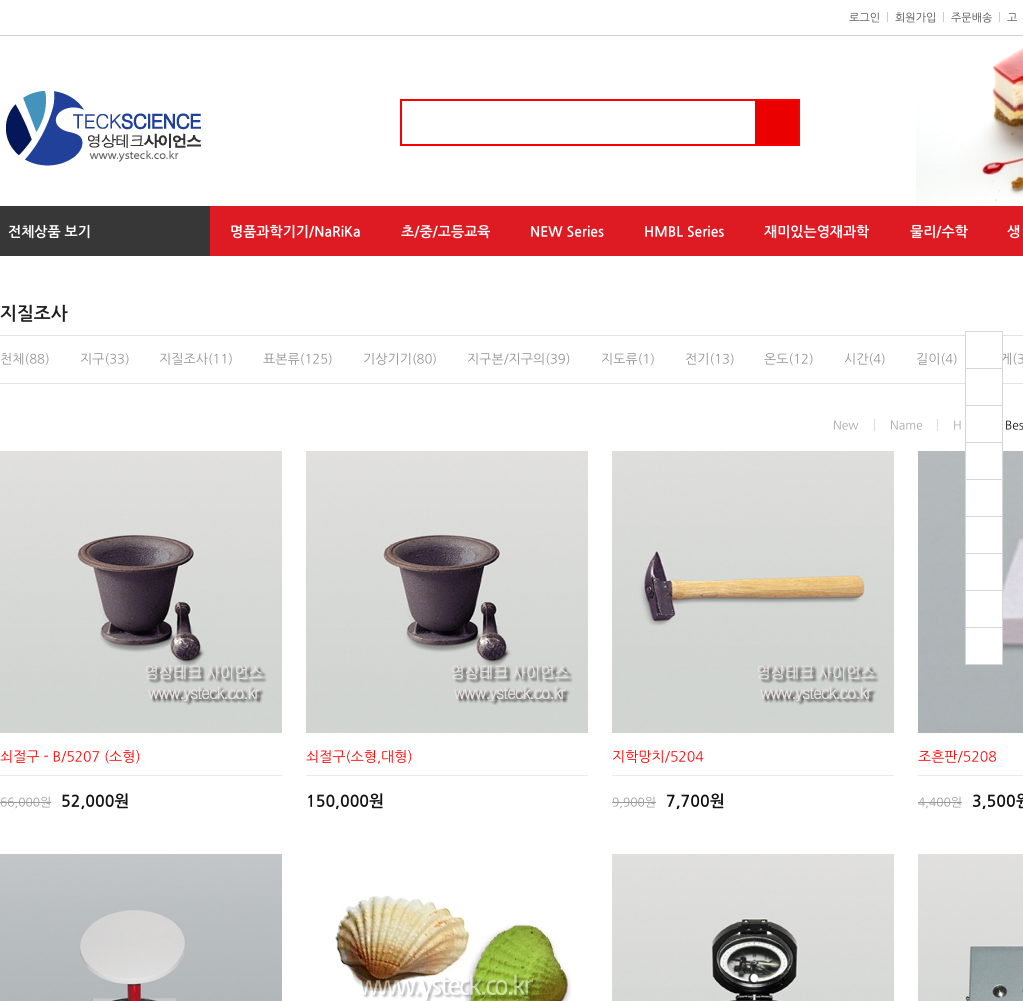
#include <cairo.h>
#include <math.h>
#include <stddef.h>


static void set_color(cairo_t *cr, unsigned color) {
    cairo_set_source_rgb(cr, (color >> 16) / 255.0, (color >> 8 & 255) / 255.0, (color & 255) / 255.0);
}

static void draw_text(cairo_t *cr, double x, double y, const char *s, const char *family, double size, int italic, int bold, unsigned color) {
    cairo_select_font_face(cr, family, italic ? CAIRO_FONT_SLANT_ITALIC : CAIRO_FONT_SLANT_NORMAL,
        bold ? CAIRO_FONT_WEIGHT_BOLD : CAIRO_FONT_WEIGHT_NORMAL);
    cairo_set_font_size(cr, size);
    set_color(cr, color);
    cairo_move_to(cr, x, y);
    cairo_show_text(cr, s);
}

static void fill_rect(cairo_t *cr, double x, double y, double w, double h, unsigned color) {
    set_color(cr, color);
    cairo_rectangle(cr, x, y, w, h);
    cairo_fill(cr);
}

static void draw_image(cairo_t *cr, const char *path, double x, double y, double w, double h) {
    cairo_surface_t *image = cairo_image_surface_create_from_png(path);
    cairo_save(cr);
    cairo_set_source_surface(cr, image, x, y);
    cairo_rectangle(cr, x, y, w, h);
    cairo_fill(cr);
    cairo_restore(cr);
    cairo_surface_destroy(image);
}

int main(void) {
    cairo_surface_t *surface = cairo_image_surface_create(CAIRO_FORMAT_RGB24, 1023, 1001);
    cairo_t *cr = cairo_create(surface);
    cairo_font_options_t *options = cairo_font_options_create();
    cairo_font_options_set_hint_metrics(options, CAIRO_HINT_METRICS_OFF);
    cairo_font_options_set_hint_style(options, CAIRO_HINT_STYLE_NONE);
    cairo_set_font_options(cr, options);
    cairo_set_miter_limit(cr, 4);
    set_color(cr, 0xFFFFFF);
    cairo_paint(cr);
    fill_rect(cr, 0, 35, 1023, 1, 0xCFCFCF);
    draw_text(cr, 849, 21, "로그인", "NanumGothic", 11, 0, 0, 0x4D4D4D);
    fill_rect(cr, 887, 12, 1, 10, 0xCCCCCC);
    draw_text(cr, 895, 21, "회원가입", "NanumGothic", 11, 0, 0, 0x4D4D4D);
    fill_rect(cr, 943, 12, 1, 10, 0xCCCCCC);
    draw_text(cr, 951, 21, "주문배송", "NanumGothic", 11, 0, 0, 0x4D4D4D);
    fill_rect(cr, 999, 12, 1, 10, 0xCCCCCC);
    draw_text(cr, 1007, 21, "고", "NanumGothic", 11, 0, 0, 0x4D4D4D);
    draw_image(cr, "assets/img1.png", 6, 91, 195, 75);
    cairo_rectangle(cr, 401, 100, 398, 45);
    set_color(cr, 0xFF0000);
    cairo_stroke(cr);
    fill_rect(cr, 755, 101, 43, 43, 0xEB0000);
    draw_image(cr, "assets/img2.png", 916, 47, 107, 158);
    fill_rect(cr, 210, 206, 813, 50, 0xDE1B23);
    fill_rect(cr, 0, 206, 210, 50, 0x373737);
    draw_text(cr, 8, 236, "전체상품 보기", "NanumGothic", 14, 0, 1, 0xFFFFFF);
    draw_text(cr, 230, 236, "명품과학기기/NaRiKa", "NanumGothic", 14, 0, 1, 0xFFFFFF);
    draw_text(cr, 401, 236, "초/중/고등교육", "NanumGothic", 14, 0, 1, 0xFFFFFF);
    draw_text(cr, 530, 236, "NEW Series", "NanumGothic", 14, 0, 1, 0xFFFFFF);
    draw_text(cr, 644, 236, "HMBL Series", "NanumGothic", 14, 0, 1, 0xFFFFFF);
    draw_text(cr, 764, 236, "재미있는영재과학", "NanumGothic", 14, 0, 1, 0xFFFFFF);
    draw_text(cr, 910, 236, "물리/수학", "NanumGothic", 14, 0, 1, 0xFFFFFF);
    draw_text(cr, 1007, 236, "생", "NanumGothic", 14, 0, 1, 0xFFFFFF);
    fill_rect(cr, 0, 335, 1023, 1, 0xE3E3E3);
    draw_text(cr, 0, 319, "지질조사", "NanumGothic", 18, 0, 1, 0x202020);
    fill_rect(cr, 0, 383, 1023, 1, 0xE3E3E3);
    draw_text(cr, 0, 363, "천체(88)", "NanumGothic", 13, 0, 0, 0x919191);
    draw_text(cr, 80, 363, "지구(33)", "NanumGothic", 13, 0, 0, 0x919191);
    draw_text(cr, 159, 363, "지질조사(11)", "NanumGothic", 13, 0, 0, 0x919191);
    draw_text(cr, 263, 363, "표본류(125)", "NanumGothic", 13, 0, 0, 0x919191);
    draw_text(cr, 363, 363, "기상기기(80)", "NanumGothic", 13, 0, 0, 0x919191);
    draw_text(cr, 467, 363, "지구본/지구의(39)", "NanumGothic", 13, 0, 0, 0x919191);
    draw_text(cr, 601, 363, "지도류(1)", "NanumGothic", 13, 0, 0, 0x919191);
    draw_text(cr, 685, 363, "전기(13)", "NanumGothic", 13, 0, 0, 0x919191);
    draw_text(cr, 764, 363, "온도(12)", "NanumGothic", 13, 0, 0, 0x919191);
    draw_text(cr, 844, 363, "시간(4)", "NanumGothic", 13, 0, 0, 0x919191);
    draw_text(cr, 916, 363, "길이(4)", "NanumGothic", 13, 0, 0, 0x919191);
    draw_text(cr, 1000, 363, "게(3", "NanumGothic", 13, 0, 0, 0x919191);
    fill_rect(cr, 874, 419, 1, 12, 0xDDDDDD);
    draw_text(cr, 833, 429, "New", "NanumGothic", 12, 0, 0, 0xA6A6A6);
    fill_rect(cr, 937, 419, 1, 12, 0xDDDDDD);
    draw_text(cr, 890, 429, "Name", "NanumGothic", 12, 0, 0, 0xA6A6A6);
    draw_text(cr, 953, 429, "H", "NanumGothic", 12, 0, 0, 0xA6A6A6);
    draw_text(cr, 1005, 429, "Bes", "NanumGothic", 12, 0, 0, 0x111111);
    draw_image(cr, "assets/img3.png", 0, 451, 282, 282);
    draw_text(cr, 0, 761, "쇠절구 - B/5207 (소형)", "NanumGothic", 14, 0, 0, 0xFF0000);
    fill_rect(cr, 0, 775, 282, 1, 0xEAEAEA);
    draw_text(cr, 0, 806, "66,000원", "NanumGothic", 12, 0, 0, 0x999999);
    fill_rect(cr, 0, 802, 51, 1, 0x999999);
    draw_text(cr, 61, 806, "52,000원", "NanumGothic", 16, 0, 1, 0x111111);
    draw_image(cr, "assets/img3.png", 306, 451, 282, 282);
    draw_text(cr, 306, 761, "쇠절구(소형,대형)", "NanumGothic", 14, 0, 0, 0xFF0000);
    fill_rect(cr, 306, 775, 282, 1, 0xEAEAEA);
    draw_text(cr, 306, 806, "150,000원", "NanumGothic", 16, 0, 1, 0x111111);
    draw_image(cr, "assets/img4.png", 612, 451, 282, 282);
    draw_text(cr, 612, 761, "지학망치/5204", "NanumGothic", 14, 0, 0, 0xFF0000);
    fill_rect(cr, 612, 775, 282, 1, 0xEAEAEA);
    draw_text(cr, 612, 806, "9,900원", "NanumGothic", 12, 0, 0, 0x999999);
    fill_rect(cr, 612, 802, 44, 1, 0x999999);
    draw_text(cr, 666, 806, "7,700원", "NanumGothic", 16, 0, 1, 0x111111);
    draw_image(cr, "assets/img5.png", 918, 451, 105, 282);
    draw_text(cr, 918, 761, "조흔판/5208", "NanumGothic", 14, 0, 0, 0xFF0000);
    fill_rect(cr, 918, 775, 105, 1, 0xEAEAEA);
    draw_text(cr, 918, 806, "4,400원", "NanumGothic", 12, 0, 0, 0x999999);
    fill_rect(cr, 918, 802, 44, 1, 0x999999);
    draw_text(cr, 972, 806, "3,500원", "NanumGothic", 16, 0, 1, 0x111111);
    draw_image(cr, "assets/img6.png", 0, 854, 282, 147);
    draw_image(cr, "assets/img7.png", 334, 895, 238, 106);
    draw_image(cr, "assets/img8.png", 612, 854, 282, 147);
    draw_image(cr, "assets/img9.png", 918, 854, 105, 147);
    fill_rect(cr, 966, 335, 36, 27, 0xFFFFFF);
    cairo_rectangle(cr, 965.5, 331.5, 37, 37);
    set_color(cr, 0xD6D6D6);
    cairo_set_line_width(cr, 1);
    cairo_stroke(cr);
    fill_rect(cr, 966, 383, 36, 1, 0xFFFFFF);
    cairo_rectangle(cr, 965.5, 368.5, 37, 37);
    set_color(cr, 0xD6D6D6);
    cairo_stroke(cr);
    cairo_rectangle(cr, 965.5, 405.5, 37, 37);
    cairo_stroke(cr);
    fill_rect(cr, 966, 451, 36, 28, 0xFFFFFF);
    cairo_rectangle(cr, 965.5, 442.5, 37, 37);
    set_color(cr, 0xD6D6D6);
    cairo_stroke(cr);
    set_color(cr, 0xFFFFFF);
    cairo_rectangle(cr, 965.5, 479.5, 37, 37);
    cairo_fill_preserve(cr);
    set_color(cr, 0xD6D6D6);
    cairo_stroke(cr);
    set_color(cr, 0xFFFFFF);
    cairo_rectangle(cr, 965.5, 516.5, 37, 37);
    cairo_fill_preserve(cr);
    set_color(cr, 0xD6D6D6);
    cairo_stroke(cr);
    set_color(cr, 0xFFFFFF);
    cairo_rectangle(cr, 965.5, 553.5, 37, 37);
    cairo_fill_preserve(cr);
    set_color(cr, 0xD6D6D6);
    cairo_stroke(cr);
    set_color(cr, 0xFFFFFF);
    cairo_rectangle(cr, 965.5, 590.5, 37, 37);
    cairo_fill_preserve(cr);
    set_color(cr, 0xD6D6D6);
    cairo_stroke(cr);
    set_color(cr, 0xFFFFFF);
    cairo_rectangle(cr, 965.5, 627.5, 37, 37);
    cairo_fill_preserve(cr);
    set_color(cr, 0xD6D6D6);
    cairo_stroke(cr);
    cairo_surface_write_to_png(surface, "output.png");
    cairo_font_options_destroy(options);
    cairo_destroy(cr);
    cairo_surface_destroy(surface);
    return 0;
}
